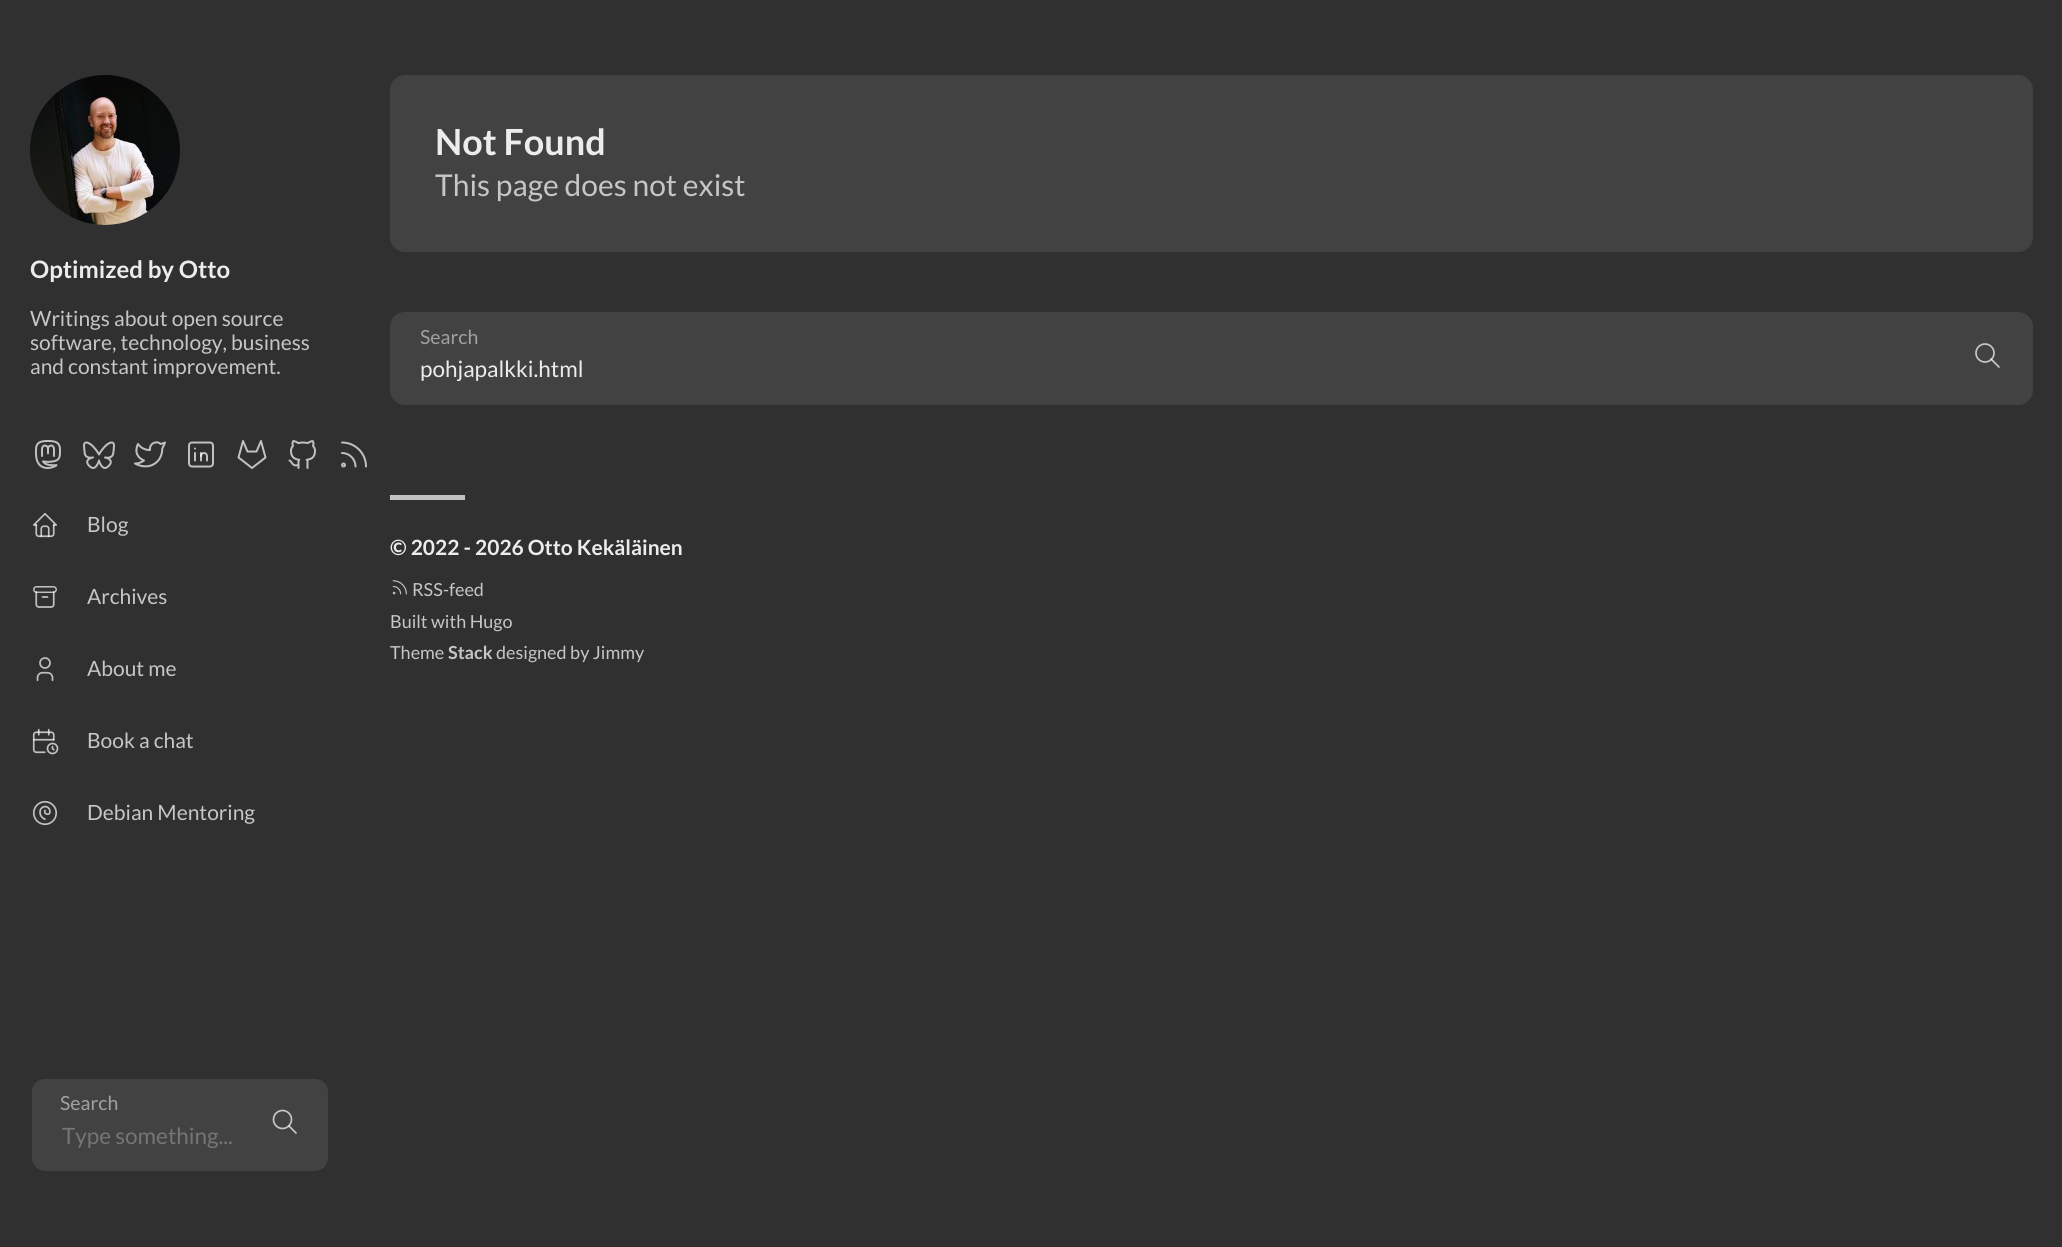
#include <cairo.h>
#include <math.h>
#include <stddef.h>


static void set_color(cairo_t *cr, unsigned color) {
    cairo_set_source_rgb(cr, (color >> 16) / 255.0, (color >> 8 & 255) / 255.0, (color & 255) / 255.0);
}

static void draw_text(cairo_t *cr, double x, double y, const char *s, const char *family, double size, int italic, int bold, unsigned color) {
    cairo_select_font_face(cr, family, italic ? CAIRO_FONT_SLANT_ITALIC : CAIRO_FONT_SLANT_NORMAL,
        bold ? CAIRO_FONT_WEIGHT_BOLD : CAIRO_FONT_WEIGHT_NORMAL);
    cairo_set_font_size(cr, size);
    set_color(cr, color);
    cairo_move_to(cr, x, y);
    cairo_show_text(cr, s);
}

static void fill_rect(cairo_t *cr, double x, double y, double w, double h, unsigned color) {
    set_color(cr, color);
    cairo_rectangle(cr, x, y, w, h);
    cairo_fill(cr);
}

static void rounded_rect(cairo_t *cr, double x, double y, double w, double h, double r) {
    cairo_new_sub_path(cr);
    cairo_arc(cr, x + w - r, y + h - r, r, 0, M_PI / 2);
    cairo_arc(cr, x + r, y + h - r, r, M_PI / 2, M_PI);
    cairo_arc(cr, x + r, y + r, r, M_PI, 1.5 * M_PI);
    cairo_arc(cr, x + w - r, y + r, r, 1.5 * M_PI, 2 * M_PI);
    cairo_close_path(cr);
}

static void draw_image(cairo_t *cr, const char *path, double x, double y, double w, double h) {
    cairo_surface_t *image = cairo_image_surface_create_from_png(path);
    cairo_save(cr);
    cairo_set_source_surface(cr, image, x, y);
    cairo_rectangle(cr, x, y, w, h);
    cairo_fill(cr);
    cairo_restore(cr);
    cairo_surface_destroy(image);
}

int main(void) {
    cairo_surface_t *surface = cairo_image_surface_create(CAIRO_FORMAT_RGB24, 2062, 1247);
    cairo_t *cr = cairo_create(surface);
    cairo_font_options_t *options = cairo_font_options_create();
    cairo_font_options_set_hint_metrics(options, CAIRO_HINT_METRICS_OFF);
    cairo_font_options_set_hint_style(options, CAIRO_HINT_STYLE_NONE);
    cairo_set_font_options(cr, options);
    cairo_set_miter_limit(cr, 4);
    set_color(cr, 0x303030);
    cairo_paint(cr);
    draw_image(cr, "assets/img1.png", 30, 75, 150, 150);
    draw_text(cr, 30, 278, "Optimized by Otto", "Lato", 24, 0, 1, 0xECECEC);
    draw_text(cr, 30, 326, "Writings about open source", "Lato", 21, 0, 0, 0xC6C6C6);
    draw_text(cr, 30, 350, "software, technology, business", "Lato", 21, 0, 0, 0xC6C6C6);
    draw_text(cr, 30, 374, "and constant improvement.", "Lato", 21, 0, 0, 0xC6C6C6);
    draw_image(cr, "assets/img2.png", 35, 440, 26, 29);
    draw_image(cr, "assets/img3.png", 83, 441, 32, 28);
    draw_image(cr, "assets/img4.png", 134, 441, 32, 27);
    draw_image(cr, "assets/img5.png", 188, 441, 26, 27);
    cairo_new_path(cr);
    cairo_move_to(cr, 265.5, 457.5);
    cairo_line_to(cr, 252, 468);
    cairo_line_to(cr, 238.5, 457.5);
    cairo_line_to(cr, 243, 441);
    cairo_line_to(cr, 247.5, 451.5);
    cairo_line_to(cr, 256.5, 451.5);
    cairo_line_to(cr, 261, 441);
    cairo_close_path(cr);
    set_color(cr, 0xC1C1C1);
    cairo_set_line_cap(cr, CAIRO_LINE_CAP_ROUND);
    cairo_set_line_join(cr, CAIRO_LINE_JOIN_ROUND);
    cairo_stroke(cr);
    draw_image(cr, "assets/img6.png", 288, 440, 28, 29);
    draw_image(cr, "assets/img7.png", 341, 441, 26, 27);
    draw_image(cr, "assets/img8.png", 33, 513, 24, 25);
    draw_text(cr, 87, 532, "Blog", "Lato", 21, 0, 0, 0xC6C6C6);
    draw_image(cr, "assets/img9.png", 33, 586, 24, 22);
    draw_text(cr, 87, 604, "Archives", "Lato", 21, 0, 0, 0xC6C6C6);
    draw_image(cr, "assets/img10.png", 36, 657, 18, 25);
    draw_text(cr, 87, 676, "About me", "Lato", 21, 0, 0, 0xC6C6C6);
    draw_image(cr, "assets/img11.png", 32, 728, 27, 27);
    draw_text(cr, 87, 748, "Book a chat", "Lato", 21, 0, 0, 0xC6C6C6);
    draw_image(cr, "assets/img12.png", 32, 800, 26, 26);
    draw_text(cr, 87, 820, "Debian Mentoring", "Lato", 21, 0, 0, 0xC6C6C6);
    set_color(cr, 0x424242);
    rounded_rect(cr, 31, 1078, 298, 94, 14);
    cairo_fill_preserve(cr);
    set_color(cr, 0x303030);
    cairo_set_line_cap(cr, CAIRO_LINE_CAP_BUTT);
    cairo_set_line_join(cr, CAIRO_LINE_JOIN_MITER);
    cairo_stroke(cr);
    draw_text(cr, 60, 1110, "Search", "Lato", 19.5, 0, 0, 0xA1A1A1);
    cairo_new_path(cr);
    cairo_arc(cr, 282.5, 1119.5, 9, 0, 2 * M_PI);
    set_color(cr, 0xC6C6C6);
    cairo_set_line_width(cr, 1.7);
    cairo_stroke(cr);
    cairo_new_path(cr);
    cairo_move_to(cr, 296, 1133);
    cairo_line_to(cr, 289, 1126);
    cairo_set_source_rgba(cr, 1, 1, 1, 0.7);
    cairo_set_line_cap(cr, CAIRO_LINE_CAP_ROUND);
    cairo_set_line_join(cr, CAIRO_LINE_JOIN_ROUND);
    cairo_stroke(cr);
    draw_text(cr, 62, 1144, "Type something...", "Lato", 22.5, 0, 0, 0x757575);
    set_color(cr, 0x424242);
    rounded_rect(cr, 390, 75, 1643, 177, 15);
    cairo_fill(cr);
    draw_text(cr, 435, 155, "Not Found", "Lato", 36, 0, 1, 0xECECEC);
    draw_text(cr, 435, 196, "This page does not exist", "Lato", 30, 0, 0, 0xC6C6C6);
    set_color(cr, 0x424242);
    rounded_rect(cr, 390, 312, 1643, 93, 15);
    cairo_fill(cr);
    draw_text(cr, 420, 344, "Search", "Lato", 19.5, 0, 0, 0xA1A1A1);
    cairo_new_path(cr);
    cairo_arc(cr, 1985, 353, 9, 0, 2 * M_PI);
    set_color(cr, 0xC6C6C6);
    cairo_set_line_cap(cr, CAIRO_LINE_CAP_BUTT);
    cairo_set_line_join(cr, CAIRO_LINE_JOIN_MITER);
    cairo_stroke(cr);
    cairo_new_path(cr);
    cairo_move_to(cr, 1999, 367);
    cairo_line_to(cr, 1991, 359);
    cairo_set_source_rgba(cr, 1, 1, 1, 0.7);
    cairo_set_line_cap(cr, CAIRO_LINE_CAP_ROUND);
    cairo_set_line_join(cr, CAIRO_LINE_JOIN_ROUND);
    cairo_stroke(cr);
    draw_text(cr, 420, 377, "pohjapalkki.html", "Lato", 22.5, 0, 0, 0xECECEC);
    fill_rect(cr, 390, 495, 75, 5, 0xC1C1C1);
    draw_text(cr, 390, 555, "© 2022 - 2026 Otto Kekäläinen", "Lato", 21, 0, 1, 0xECECEC);
    draw_image(cr, "assets/img13.png", 392, 580, 15, 15);
    draw_text(cr, 412, 596, "RSS-feed", "Lato", 18, 0, 0, 0xC6C6C6);
    draw_text(cr, 390, 628, "Built with Hugo", "Lato", 18, 0, 0, 0xC6C6C6);
    draw_text(cr, 390, 659, "Theme", "Lato", 18, 0, 0, 0xC6C6C6);
    draw_text(cr, 448, 659, "Stack", "Lato", 18, 0, 1, 0xC6C6C6);
    draw_text(cr, 496, 659, "designed by Jimmy", "Lato", 18, 0, 0, 0xC6C6C6);
    cairo_surface_write_to_png(surface, "output.png");
    cairo_font_options_destroy(options);
    cairo_destroy(cr);
    cairo_surface_destroy(surface);
    return 0;
}
